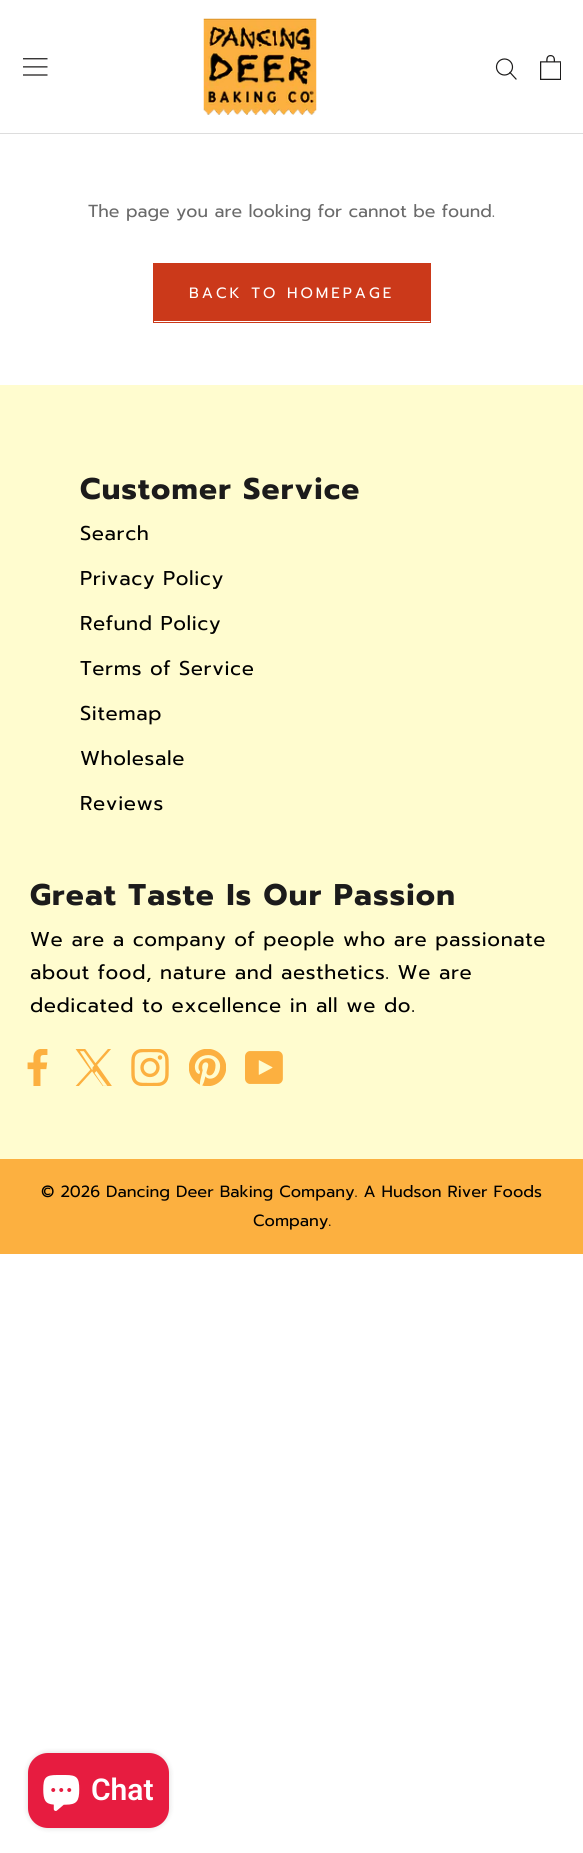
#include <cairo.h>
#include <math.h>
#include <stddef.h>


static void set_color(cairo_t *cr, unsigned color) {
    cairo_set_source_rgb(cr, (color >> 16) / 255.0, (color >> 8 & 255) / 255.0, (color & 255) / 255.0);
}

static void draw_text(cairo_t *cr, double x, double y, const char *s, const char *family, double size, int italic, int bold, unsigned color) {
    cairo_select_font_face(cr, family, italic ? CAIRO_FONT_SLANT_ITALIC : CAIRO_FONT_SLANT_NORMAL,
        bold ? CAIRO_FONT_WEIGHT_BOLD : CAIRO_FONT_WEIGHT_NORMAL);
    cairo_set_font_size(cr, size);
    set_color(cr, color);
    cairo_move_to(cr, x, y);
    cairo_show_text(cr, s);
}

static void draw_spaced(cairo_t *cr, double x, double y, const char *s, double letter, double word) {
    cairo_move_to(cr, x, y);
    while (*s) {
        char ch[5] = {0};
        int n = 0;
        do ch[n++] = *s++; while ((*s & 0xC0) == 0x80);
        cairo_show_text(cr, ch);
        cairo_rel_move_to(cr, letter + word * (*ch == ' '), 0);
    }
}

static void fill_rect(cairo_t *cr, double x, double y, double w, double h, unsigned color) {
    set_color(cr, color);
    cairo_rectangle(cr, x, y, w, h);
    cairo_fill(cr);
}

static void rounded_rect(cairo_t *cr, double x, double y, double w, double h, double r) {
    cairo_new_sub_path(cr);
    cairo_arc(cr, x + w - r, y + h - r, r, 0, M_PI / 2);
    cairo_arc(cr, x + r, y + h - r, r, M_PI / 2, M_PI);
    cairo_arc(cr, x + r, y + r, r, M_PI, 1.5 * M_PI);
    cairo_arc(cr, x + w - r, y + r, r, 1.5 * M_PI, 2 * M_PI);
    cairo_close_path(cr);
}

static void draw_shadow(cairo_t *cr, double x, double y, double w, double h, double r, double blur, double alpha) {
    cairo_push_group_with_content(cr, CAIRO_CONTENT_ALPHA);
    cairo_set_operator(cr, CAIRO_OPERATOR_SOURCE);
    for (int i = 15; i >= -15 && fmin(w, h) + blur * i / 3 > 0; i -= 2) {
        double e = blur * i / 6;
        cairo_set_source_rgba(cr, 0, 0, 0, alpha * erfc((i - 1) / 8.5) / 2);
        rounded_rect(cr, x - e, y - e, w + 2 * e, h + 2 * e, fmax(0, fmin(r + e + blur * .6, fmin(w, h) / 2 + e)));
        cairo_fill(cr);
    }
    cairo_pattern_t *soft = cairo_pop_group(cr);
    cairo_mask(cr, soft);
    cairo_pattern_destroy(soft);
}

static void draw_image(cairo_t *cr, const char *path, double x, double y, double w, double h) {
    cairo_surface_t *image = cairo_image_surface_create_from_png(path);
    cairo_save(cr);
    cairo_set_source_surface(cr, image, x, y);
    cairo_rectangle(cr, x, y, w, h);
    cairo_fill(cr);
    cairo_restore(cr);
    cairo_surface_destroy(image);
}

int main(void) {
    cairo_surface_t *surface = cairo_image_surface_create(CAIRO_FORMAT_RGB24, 583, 1853);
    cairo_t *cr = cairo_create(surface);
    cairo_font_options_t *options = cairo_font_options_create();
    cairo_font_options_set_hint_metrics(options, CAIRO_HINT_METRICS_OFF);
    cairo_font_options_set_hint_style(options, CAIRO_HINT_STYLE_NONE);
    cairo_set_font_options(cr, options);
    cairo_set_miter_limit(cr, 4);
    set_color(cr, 0xFFFFFF);
    cairo_paint(cr);
    fill_rect(cr, 0, 133, 583, 1, 0xDDDDDD);
    draw_image(cr, "assets/img1.png", 23, 58, 25, 18);
    draw_image(cr, "assets/img2.png", 203, 18, 114, 97);
    cairo_new_path(cr);
    cairo_move_to(cr, 516, 79);
    cairo_line_to(cr, 510, 72.5);
    set_color(cr, 0x1C1B1B);
    cairo_set_line_width(cr, 1.2);
    cairo_set_line_cap(cr, CAIRO_LINE_CAP_SQUARE);
    cairo_stroke(cr);
    cairo_arc(cr, 504.5, 67, 8, 0, 2 * M_PI);
    cairo_set_line_cap(cr, CAIRO_LINE_CAP_BUTT);
    cairo_stroke(cr);
    draw_image(cr, "assets/img3.png", 540, 55, 21, 25);
    draw_text(cr, 88, 217, "The page you are looking for cannot be found.", "Prompt", 17.5, 0, 0, 0x6A6A6A);
    cairo_rectangle(cr, 153.5, 263.5, 277, 59);
    set_color(cr, 0xCB391A);
    cairo_set_line_width(cr, 1);
    cairo_stroke(cr);
    fill_rect(cr, 154, 264, 276, 57, 0xCB391A);
    cairo_set_font_size(cr, 15);
    set_color(cr, 0xFFFFFF);
    draw_spaced(cr, 189, 298, "BACK TO HOMEPAGE", 3, 0);
    fill_rect(cr, 0, 385, 583, 774, 0xFFFCCF);
    cairo_select_font_face(cr, "Prompt", CAIRO_FONT_SLANT_NORMAL, CAIRO_FONT_WEIGHT_BOLD);
    cairo_set_font_size(cr, 30);
    set_color(cr, 0x1C1B1B);
    draw_spaced(cr, 80, 499, "Customer Service", 1.25, 0);
    cairo_select_font_face(cr, "Prompt", CAIRO_FONT_SLANT_NORMAL, CAIRO_FONT_WEIGHT_NORMAL);
    cairo_set_font_size(cr, 20);
    set_color(cr, 0x000000);
    draw_spaced(cr, 80, 540, "Search", 0.6, 0);
    draw_spaced(cr, 80, 585, "Privacy Policy", 0.6, 0);
    draw_spaced(cr, 80, 630, "Refund Policy", 0.6, 0);
    draw_spaced(cr, 80, 675, "Terms of Service", 0.6, 0);
    draw_spaced(cr, 80, 720, "Sitemap", 0.6, 0);
    draw_spaced(cr, 80, 765, "Wholesale", 0.6, 0);
    draw_spaced(cr, 80, 810, "Reviews", 0.6, 0);
    cairo_select_font_face(cr, "Prompt", CAIRO_FONT_SLANT_NORMAL, CAIRO_FONT_WEIGHT_BOLD);
    cairo_set_font_size(cr, 30);
    set_color(cr, 0x1C1B1B);
    draw_spaced(cr, 30, 905, "Great Taste Is Our Passion", 1.25, 0);
    cairo_select_font_face(cr, "Prompt", CAIRO_FONT_SLANT_NORMAL, CAIRO_FONT_WEIGHT_NORMAL);
    cairo_set_font_size(cr, 20);
    set_color(cr, 0x000000);
    draw_spaced(cr, 30, 946, "We are a company of people who are passionate", 0.6, 0);
    draw_spaced(cr, 30, 979, "about food, nature and aesthetics. We are", 0.6, 0);
    draw_spaced(cr, 30, 1012, "dedicated to excellence in all we do.", 0.6, 0);
    draw_image(cr, "assets/img4.png", 27, 1049, 21, 37);
    draw_image(cr, "assets/img5.png", 75, 1049, 37, 37);
    draw_image(cr, "assets/img6.png", 131, 1049, 38, 37);
    draw_image(cr, "assets/img7.png", 189, 1049, 37, 37);
    draw_image(cr, "assets/img8.png", 245, 1051, 38, 33);
    fill_rect(cr, 0, 1159, 583, 95, 0xFCB040);
    draw_text(cr, 41, 1197, "© 2026 Dancing Deer Baking Company. A Hudson River Foods", "Prompt", 16.25, 0, 0, 0x000000);
    draw_text(cr, 253, 1226, "Company.", "Prompt", 16.25, 0, 0, 0x000000);
    set_color(cr, 0x000000);
    draw_shadow(cr, 28, 1753, 141, 75, 20, 3, 0.15);
    set_color(cr, 0xE71C40);
    rounded_rect(cr, 28, 1753, 141, 75, 20);
    cairo_fill(cr);
    draw_image(cr, "assets/img9.png", 43, 1775, 37, 36);
    draw_text(cr, 91, 1800, "Chat", "Roboto SemiBold", 30, 0, 0, 0xFFFFFF);
    cairo_surface_write_to_png(surface, "output.png");
    cairo_font_options_destroy(options);
    cairo_destroy(cr);
    cairo_surface_destroy(surface);
    return 0;
}
